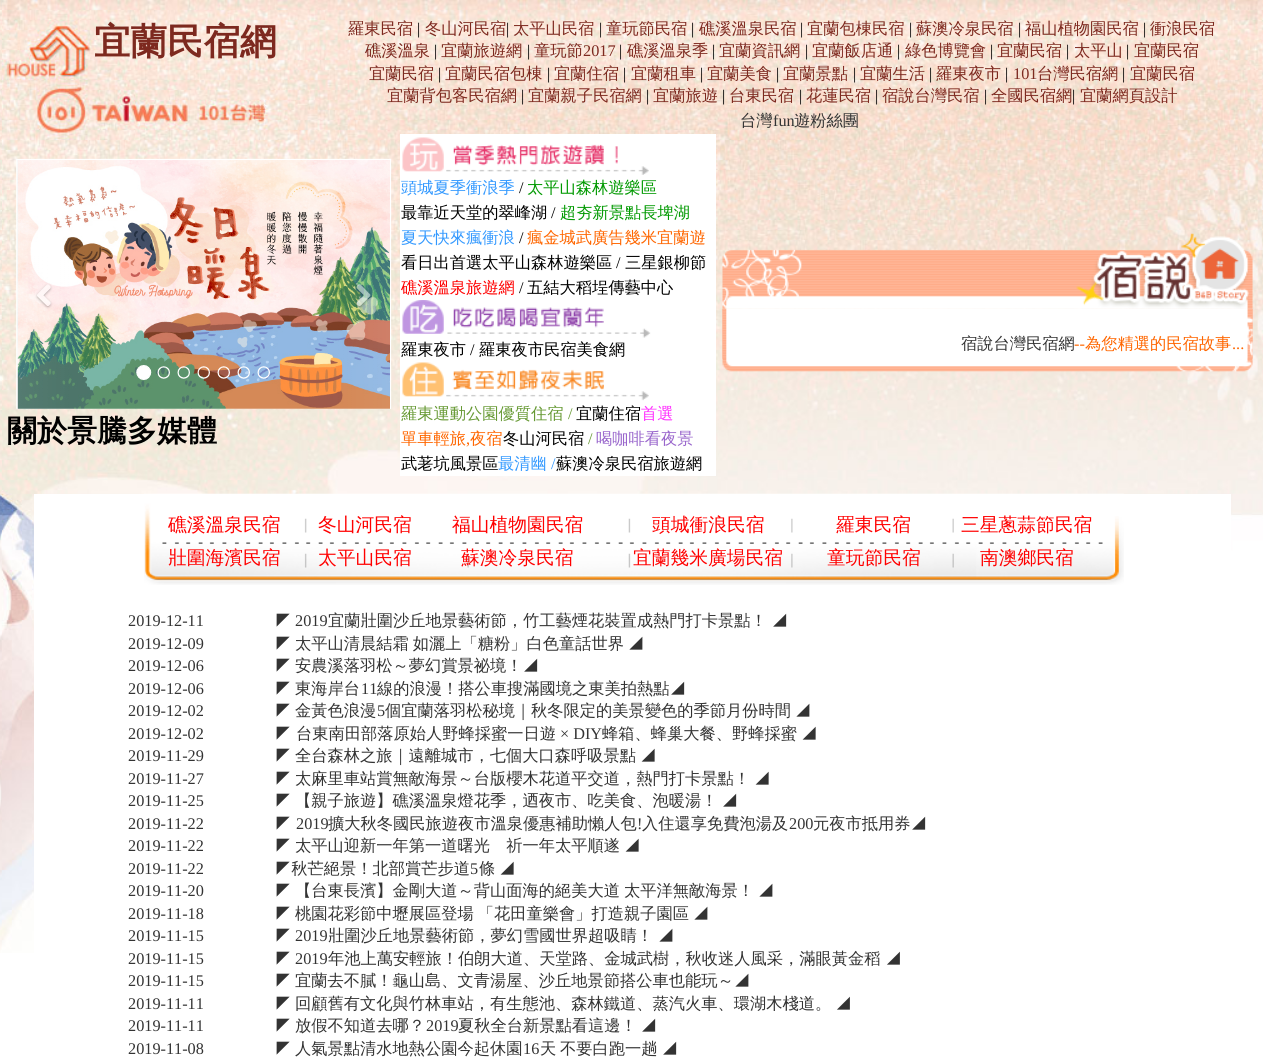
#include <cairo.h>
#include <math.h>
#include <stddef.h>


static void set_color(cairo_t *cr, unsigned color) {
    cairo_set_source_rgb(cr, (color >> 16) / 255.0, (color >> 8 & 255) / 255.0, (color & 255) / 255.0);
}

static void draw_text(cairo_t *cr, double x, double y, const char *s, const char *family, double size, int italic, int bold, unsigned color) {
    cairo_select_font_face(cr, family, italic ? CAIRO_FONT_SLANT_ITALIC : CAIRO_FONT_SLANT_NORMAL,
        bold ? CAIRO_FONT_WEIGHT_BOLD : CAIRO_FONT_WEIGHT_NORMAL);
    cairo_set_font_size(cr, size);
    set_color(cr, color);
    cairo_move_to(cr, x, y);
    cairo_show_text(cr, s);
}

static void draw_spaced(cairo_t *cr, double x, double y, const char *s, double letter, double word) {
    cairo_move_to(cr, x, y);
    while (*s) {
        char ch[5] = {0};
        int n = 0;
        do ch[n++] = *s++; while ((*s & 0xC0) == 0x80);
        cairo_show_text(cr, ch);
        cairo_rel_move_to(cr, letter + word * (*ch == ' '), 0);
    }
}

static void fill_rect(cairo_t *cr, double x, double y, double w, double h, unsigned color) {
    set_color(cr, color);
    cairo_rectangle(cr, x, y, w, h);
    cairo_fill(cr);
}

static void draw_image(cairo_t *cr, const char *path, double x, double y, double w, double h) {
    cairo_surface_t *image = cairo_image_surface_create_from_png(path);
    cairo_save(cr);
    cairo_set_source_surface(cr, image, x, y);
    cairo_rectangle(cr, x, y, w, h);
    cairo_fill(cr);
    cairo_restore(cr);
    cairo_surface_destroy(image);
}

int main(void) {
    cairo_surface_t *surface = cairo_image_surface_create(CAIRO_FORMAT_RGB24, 1263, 1058);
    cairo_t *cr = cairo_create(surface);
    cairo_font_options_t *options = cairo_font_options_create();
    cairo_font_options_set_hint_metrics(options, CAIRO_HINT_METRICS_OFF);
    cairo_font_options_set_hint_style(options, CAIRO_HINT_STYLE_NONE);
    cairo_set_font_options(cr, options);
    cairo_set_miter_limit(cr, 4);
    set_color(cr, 0xFFFFFF);
    cairo_paint(cr);
    draw_image(cr, "assets/img1.png", 0, 0, 1263, 953);
    draw_image(cr, "assets/img2.png", 7, 0, 1251, 494);
    draw_text(cr, 94, 54, "宜蘭民宿網", "WenQuanYi Zen Hei", 36.5, 0, 1, 0x7D291F);
    draw_text(cr, 348, 34, "羅東民宿", "WenQuanYi Zen Hei Medium", 16.25, 0, 0, 0x7D291F);
    draw_text(cr, 417, 34, "|", "Liberation Serif", 16.25, 0, 0, 0x000000);
    draw_text(cr, 425, 34, "冬山河民宿", "WenQuanYi Zen Hei Medium", 16.25, 0, 0, 0x7D291F);
    draw_text(cr, 506, 34, "|", "Liberation Serif", 16.25, 0, 0, 0x000000);
    draw_text(cr, 513, 34, "太平山民宿", "WenQuanYi Zen Hei Medium", 16.25, 0, 0, 0x7D291F);
    draw_text(cr, 599, 34, "|", "Liberation Serif", 16.25, 0, 0, 0x000000);
    draw_text(cr, 606, 34, "童玩節民宿", "WenQuanYi Zen Hei Medium", 16.25, 0, 0, 0x7D291F);
    draw_text(cr, 691, 34, "|", "Liberation Serif", 16.25, 0, 0, 0x000000);
    draw_text(cr, 699, 34, "礁溪溫泉民宿", "WenQuanYi Zen Hei Medium", 16.25, 0, 0, 0x7D291F);
    draw_text(cr, 800, 34, "|", "Liberation Serif", 16.25, 0, 0, 0x000000);
    draw_text(cr, 807, 34, "宜蘭包棟民宿", "WenQuanYi Zen Hei Medium", 16.25, 0, 0, 0x7D291F);
    draw_text(cr, 909, 34, "|", "Liberation Serif", 16.25, 0, 0, 0x000000);
    draw_text(cr, 916, 34, "蘇澳冷泉民宿", "WenQuanYi Zen Hei Medium", 16.25, 0, 0, 0x7D291F);
    draw_text(cr, 1018, 34, "|", "Liberation Serif", 16.25, 0, 0, 0x000000);
    draw_text(cr, 1025, 34, "福山植物園民宿", "WenQuanYi Zen Hei Medium", 16.25, 0, 0, 0x7D291F);
    draw_text(cr, 1143, 34, "|", "Liberation Serif", 16.25, 0, 0, 0x000000);
    draw_text(cr, 1150, 34, "衝浪民宿", "WenQuanYi Zen Hei Medium", 16.25, 0, 0, 0x7D291F);
    draw_text(cr, 365, 56, "礁溪溫泉", "WenQuanYi Zen Hei Medium", 16.25, 0, 0, 0x7D291F);
    draw_text(cr, 434, 56, "|", "Liberation Serif", 16.25, 0, 0, 0x000000);
    draw_text(cr, 441, 56, "宜蘭旅遊網", "WenQuanYi Zen Hei Medium", 16.25, 0, 0, 0x7D291F);
    draw_text(cr, 527, 56, "|", "Liberation Serif", 16.25, 0, 0, 0x000000);
    draw_text(cr, 534, 56, "童玩節", "WenQuanYi Zen Hei Medium", 16.25, 0, 0, 0x7D291F);
    draw_text(cr, 583, 56, "2017", "Liberation Serif", 16.25, 0, 0, 0x7D291F);
    draw_text(cr, 619, 56, "|", "Liberation Serif", 16.25, 0, 0, 0x000000);
    draw_text(cr, 627, 56, "礁溪溫泉季", "WenQuanYi Zen Hei Medium", 16.25, 0, 0, 0x7D291F);
    draw_text(cr, 712, 56, "|", "Liberation Serif", 16.25, 0, 0, 0x000000);
    draw_text(cr, 719, 56, "宜蘭資訊網", "WenQuanYi Zen Hei Medium", 16.25, 0, 0, 0x7D291F);
    draw_text(cr, 805, 56, "|", "Liberation Serif", 16.25, 0, 0, 0x000000);
    draw_text(cr, 812, 56, "宜蘭飯店通", "WenQuanYi Zen Hei Medium", 16.25, 0, 0, 0x7D291F);
    draw_text(cr, 897, 56, "|", "Liberation Serif", 16.25, 0, 0, 0x000000);
    draw_text(cr, 905, 56, "綠色博覽會", "WenQuanYi Zen Hei Medium", 16.25, 0, 0, 0x7D291F);
    draw_text(cr, 990, 56, "|", "Liberation Serif", 16.25, 0, 0, 0x000000);
    draw_text(cr, 997, 56, "宜蘭民宿", "WenQuanYi Zen Hei Medium", 16.25, 0, 0, 0x7D291F);
    draw_text(cr, 1066, 56, "|", "Liberation Serif", 16.25, 0, 0, 0x000000);
    draw_text(cr, 1074, 56, "太平山", "WenQuanYi Zen Hei Medium", 16.25, 0, 0, 0x7D291F);
    draw_text(cr, 1126, 56, "|", "Liberation Serif", 16.25, 0, 0, 0x000000);
    draw_text(cr, 1134, 56, "宜蘭民宿", "WenQuanYi Zen Hei Medium", 16.25, 0, 0, 0x7D291F);
    draw_text(cr, 369, 79, "宜蘭民宿", "WenQuanYi Zen Hei Medium", 16.25, 0, 0, 0x7D291F);
    draw_text(cr, 438, 79, "|", "Liberation Serif", 16.25, 0, 0, 0x000000);
    draw_text(cr, 445, 79, "宜蘭民宿包棟", "WenQuanYi Zen Hei Medium", 16.25, 0, 0, 0x7D291F);
    draw_text(cr, 547, 79, "|", "Liberation Serif", 16.25, 0, 0, 0x000000);
    draw_text(cr, 554, 79, "宜蘭住宿", "WenQuanYi Zen Hei Medium", 16.25, 0, 0, 0x7D291F);
    draw_text(cr, 623, 79, "|", "Liberation Serif", 16.25, 0, 0, 0x000000);
    draw_text(cr, 631, 79, "宜蘭租車", "WenQuanYi Zen Hei Medium", 16.25, 0, 0, 0x7D291F);
    draw_text(cr, 700, 79, "|", "Liberation Serif", 16.25, 0, 0, 0x000000);
    draw_text(cr, 707, 79, "宜蘭美食", "WenQuanYi Zen Hei Medium", 16.25, 0, 0, 0x7D291F);
    draw_text(cr, 776, 79, "|", "Liberation Serif", 16.25, 0, 0, 0x000000);
    draw_text(cr, 783, 79, "宜蘭景點", "WenQuanYi Zen Hei Medium", 16.25, 0, 0, 0x7D291F);
    draw_text(cr, 853, 79, "|", "Liberation Serif", 16.25, 0, 0, 0x000000);
    draw_text(cr, 860, 79, "宜蘭生活", "WenQuanYi Zen Hei Medium", 16.25, 0, 0, 0x7D291F);
    draw_text(cr, 929, 79, "|", "Liberation Serif", 16.25, 0, 0, 0x000000);
    draw_text(cr, 936, 79, "羅東夜市", "WenQuanYi Zen Hei Medium", 16.25, 0, 0, 0x7D291F);
    draw_text(cr, 1005, 79, "|", "Liberation Serif", 16.25, 0, 0, 0x000000);
    draw_text(cr, 1013, 79, "101", "Liberation Serif", 16.25, 0, 0, 0x7D291F);
    draw_text(cr, 1037, 79, "台灣民宿網", "WenQuanYi Zen Hei Medium", 16.25, 0, 0, 0x7D291F);
    draw_text(cr, 1122, 79, "|", "Liberation Serif", 16.25, 0, 0, 0x000000);
    draw_text(cr, 1130, 79, "宜蘭民宿", "WenQuanYi Zen Hei Medium", 16.25, 0, 0, 0x7D291F);
    draw_text(cr, 387, 101, "宜蘭背包客民宿網", "WenQuanYi Zen Hei Medium", 16.25, 0, 0, 0x7D291F);
    draw_text(cr, 521, 101, "|", "Liberation Serif", 16.25, 0, 0, 0x000000);
    draw_text(cr, 528, 101, "宜蘭親子民宿網", "WenQuanYi Zen Hei Medium", 16.25, 0, 0, 0x7D291F);
    draw_text(cr, 646, 101, "|", "Liberation Serif", 16.25, 0, 0, 0x000000);
    draw_text(cr, 653, 101, "宜蘭旅遊", "WenQuanYi Zen Hei Medium", 16.25, 0, 0, 0x7D291F);
    draw_text(cr, 722, 101, "|", "Liberation Serif", 16.25, 0, 0, 0x000000);
    draw_text(cr, 729, 101, "台東民宿", "WenQuanYi Zen Hei Medium", 16.25, 0, 0, 0x7D291F);
    draw_text(cr, 799, 101, "|", "Liberation Serif", 16.25, 0, 0, 0x000000);
    draw_text(cr, 806, 101, "花蓮民宿", "WenQuanYi Zen Hei Medium", 16.25, 0, 0, 0x7D291F);
    draw_text(cr, 875, 101, "|", "Liberation Serif", 16.25, 0, 0, 0x000000);
    draw_text(cr, 882, 101, "宿說台灣民宿", "WenQuanYi Zen Hei Medium", 16.25, 0, 0, 0x7D291F);
    draw_text(cr, 984, 101, "|", "Liberation Serif", 16.25, 0, 0, 0x000000);
    draw_text(cr, 991, 101, "全國民宿網", "WenQuanYi Zen Hei Medium", 16.25, 0, 0, 0x7D291F);
    draw_text(cr, 1072, 101, "|", "Liberation Serif", 16.25, 0, 0, 0x000000);
    draw_text(cr, 1080, 101, "宜蘭網頁設計", "WenQuanYi Zen Hei Medium", 16.25, 0, 0, 0x7D291F);
    draw_text(cr, 740, 126, "台灣", "WenQuanYi Zen Hei Medium", 16.25, 0, 0, 0x333333);
    draw_text(cr, 773, 126, "fun", "Liberation Serif", 16.25, 0, 0, 0x333333);
    draw_text(cr, 794, 126, "遊粉絲團", "WenQuanYi Zen Hei Medium", 16.25, 0, 0, 0x333333);
    fill_rect(cr, 400, 134, 316, 342, 0xFFFFFF);
    draw_image(cr, "assets/img3.png", 402, 137, 247, 38);
    draw_text(cr, 401, 193, "頭城夏季衝浪季", "WenQuanYi Zen Hei Medium", 16.25, 0, 0, 0x3399FF);
    draw_text(cr, 519, 193, "/", "Liberation Serif", 16.25, 0, 0, 0x000000);
    draw_text(cr, 527, 193, "太平山森林遊樂區", "WenQuanYi Zen Hei Medium", 16.25, 0, 0, 0x009900);
    draw_text(cr, 401, 218, "最靠近天堂的翠峰湖", "WenQuanYi Zen Hei Medium", 16.25, 0, 0, 0x000000);
    draw_text(cr, 551, 218, "/", "Liberation Serif", 16.25, 0, 0, 0x000000);
    draw_text(cr, 560, 218, "超夯新景點長埤湖", "WenQuanYi Zen Hei Medium", 16.25, 0, 0, 0x009900);
    draw_text(cr, 401, 243, "夏天快來瘋衝浪", "WenQuanYi Zen Hei Medium", 16.25, 0, 0, 0x3399FF);
    draw_text(cr, 519, 243, "/", "Liberation Serif", 16.25, 0, 0, 0x000000);
    draw_text(cr, 527, 243, "瘋金城武廣告幾米宜蘭遊", "WenQuanYi Zen Hei Medium", 16.25, 0, 0, 0xFF6600);
    draw_text(cr, 401, 268, "看日出首選太平山森林遊樂區", "WenQuanYi Zen Hei Medium", 16.25, 0, 0, 0x000000);
    draw_text(cr, 616, 268, "/", "Liberation Serif", 16.25, 0, 0, 0x000000);
    draw_text(cr, 625, 268, "三星銀柳節", "WenQuanYi Zen Hei Medium", 16.25, 0, 0, 0x000000);
    draw_text(cr, 401, 293, "礁溪溫泉旅遊網", "WenQuanYi Zen Hei Medium", 16.25, 0, 0, 0xFF0000);
    draw_text(cr, 519, 293, "/", "Liberation Serif", 16.25, 0, 0, 0x000000);
    draw_text(cr, 527, 293, "五結大稻埕傳藝中心", "WenQuanYi Zen Hei Medium", 16.25, 0, 0, 0x000000);
    draw_image(cr, "assets/img4.png", 402, 300, 249, 38);
    draw_text(cr, 401, 355, "羅東夜市", "WenQuanYi Zen Hei Medium", 16.25, 0, 0, 0x000000);
    draw_text(cr, 470, 355, "/", "Liberation Serif", 16.25, 0, 0, 0x000000);
    draw_text(cr, 479, 355, "羅東夜市民宿美食網", "WenQuanYi Zen Hei Medium", 16.25, 0, 0, 0x000000);
    draw_image(cr, "assets/img5.png", 402, 362, 247, 39);
    draw_text(cr, 401, 419, "羅東運動公園優質住宿", "WenQuanYi Zen Hei Medium", 16.25, 0, 0, 0x669933);
    draw_text(cr, 568, 419, "/", "Liberation Serif", 16.25, 0, 0, 0x669933);
    draw_text(cr, 576, 419, "宜蘭住宿", "WenQuanYi Zen Hei Medium", 16.25, 0, 0, 0x000000);
    draw_text(cr, 641, 419, "首選", "WenQuanYi Zen Hei Medium", 16.25, 0, 0, 0xFF33FF);
    draw_text(cr, 401, 444, "單車輕旅", "WenQuanYi Zen Hei Medium", 16.25, 0, 0, 0xFF6600);
    draw_text(cr, 466, 444, ",", "Liberation Serif", 16.25, 0, 0, 0xFF6600);
    draw_text(cr, 470, 444, "夜宿", "WenQuanYi Zen Hei Medium", 16.25, 0, 0, 0xFF6600);
    draw_text(cr, 503, 444, "冬山河民宿", "WenQuanYi Zen Hei Medium", 16.25, 0, 0, 0x000000);
    draw_text(cr, 588, 444, "/", "Liberation Serif", 16.25, 0, 0, 0x669933);
    draw_text(cr, 596, 444, "喝咖啡看夜景", "WenQuanYi Zen Hei Medium", 16.25, 0, 0, 0x9966CC);
    draw_text(cr, 401, 469, "武荖坑風景區", "WenQuanYi Zen Hei Medium", 16.25, 0, 0, 0x000000);
    draw_text(cr, 498, 469, "最清幽", "WenQuanYi Zen Hei Medium", 16.25, 0, 0, 0x3399FF);
    draw_text(cr, 551, 469, "/", "Liberation Serif", 16.25, 0, 0, 0x3399FF);
    draw_text(cr, 556, 469, "蘇澳冷泉民宿旅遊網", "WenQuanYi Zen Hei Medium", 16.25, 0, 0, 0x000000);
    draw_image(cr, "assets/img7.png", 722, 308, 531, 52);
    draw_image(cr, "assets/img8.png", 722, 308, 531, 51);
    draw_image(cr, "assets/img6.png", 722, 233, 531, 76);
    draw_text(cr, 961, 349, "宿說台灣民宿網", "WenQuanYi Zen Hei Medium", 16.25, 0, 0, 0x333333);
    draw_text(cr, 1074, 349, "--", "Liberation Serif", 16.25, 0, 0, 0xFF6600);
    draw_text(cr, 1085, 349, "為您精選的民宿故事", "WenQuanYi Zen Hei Medium", 16.25, 0, 0, 0xFF6600);
    draw_text(cr, 1232, 349, "...", "Liberation Serif", 16.25, 0, 0, 0xFF6600);
    draw_image(cr, "assets/img9.png", 722, 360, 531, 12);
    draw_image(cr, "assets/img10.png", 16, 158, 376, 251);
    draw_text(cr, 7, 441, "關於景騰多媒體", "WenQuanYi Zen Hei", 30, 0, 1, 0x000000);
    fill_rect(cr, 34, 494, 1197, 459, 0xFFFFFF);
    draw_image(cr, "assets/img11.png", 144, 493, 980, 92);
    draw_text(cr, 168, 531, "礁溪溫泉民宿", "WenQuanYi Zen Hei Medium", 18.75, 0, 0, 0xFF0000);
    draw_text(cr, 318, 531, "冬山河民宿", "WenQuanYi Zen Hei Medium", 18.75, 0, 0, 0xFF0000);
    draw_text(cr, 452, 531, "福山植物園民宿", "WenQuanYi Zen Hei Medium", 18.75, 0, 0, 0xFF0000);
    draw_text(cr, 652, 531, "頭城衝浪民宿", "WenQuanYi Zen Hei Medium", 18.75, 0, 0, 0xFF0000);
    draw_text(cr, 836, 531, "羅東民宿", "WenQuanYi Zen Hei Medium", 18.75, 0, 0, 0xFF0000);
    draw_text(cr, 961, 531, "三星蔥蒜節民宿", "WenQuanYi Zen Hei Medium", 18.75, 0, 0, 0xFF0000);
    draw_text(cr, 168, 564, "壯圍海濱民宿", "WenQuanYi Zen Hei Medium", 18.75, 0, 0, 0xFF0000);
    draw_text(cr, 318, 564, "太平山民宿", "WenQuanYi Zen Hei Medium", 18.75, 0, 0, 0xFF0000);
    draw_text(cr, 461, 564, "蘇澳冷泉民宿", "WenQuanYi Zen Hei Medium", 18.75, 0, 0, 0xFF0000);
    draw_text(cr, 633, 564, "宜蘭幾米廣場民宿", "WenQuanYi Zen Hei Medium", 18.75, 0, 0, 0xFF0000);
    draw_text(cr, 827, 564, "童玩節民宿", "WenQuanYi Zen Hei Medium", 18.75, 0, 0, 0xFF0000);
    draw_text(cr, 980, 564, "南澳鄉民宿", "WenQuanYi Zen Hei Medium", 18.75, 0, 0, 0xFF0000);
    draw_text(cr, 128, 626, "2019-12-11", "Liberation Serif", 16.25, 0, 0, 0x333333);
    draw_text(cr, 275, 626, "◤", "WenQuanYi Zen Hei Medium", 16.25, 0, 0, 0x333333);
    draw_text(cr, 295, 626, "2019", "Liberation Serif", 16.25, 0, 0, 0x333333);
    draw_text(cr, 328, 626, "宜蘭壯圍沙丘地景藝術節，竹工藝煙花裝置成熱門打卡景點！ ◢", "WenQuanYi Zen Hei Medium", 16.25, 0, 0, 0x333333);
    draw_text(cr, 128, 649, "2019-12-09", "Liberation Serif", 16.25, 0, 0, 0x333333);
    cairo_select_font_face(cr, "WenQuanYi Zen Hei Medium", CAIRO_FONT_SLANT_NORMAL, CAIRO_FONT_WEIGHT_NORMAL);
    draw_spaced(cr, 275, 649, "◤ 太平山清晨結霜 如灑上「糖粉」白色童話世界 ◢", 0, -1);
    draw_text(cr, 128, 671, "2019-12-06", "Liberation Serif", 16.25, 0, 0, 0x333333);
    cairo_select_font_face(cr, "WenQuanYi Zen Hei Medium", CAIRO_FONT_SLANT_NORMAL, CAIRO_FONT_WEIGHT_NORMAL);
    draw_spaced(cr, 275, 671, "◤ 安農溪落羽松～夢幻賞景祕境！◢", 0, -1);
    draw_text(cr, 128, 694, "2019-12-06", "Liberation Serif", 16.25, 0, 0, 0x333333);
    cairo_select_font_face(cr, "WenQuanYi Zen Hei Medium", CAIRO_FONT_SLANT_NORMAL, CAIRO_FONT_WEIGHT_NORMAL);
    draw_spaced(cr, 275, 694, "◤ 東海岸台", 0, -1);
    draw_text(cr, 361, 694, "11", "Liberation Serif", 16.25, 0, 0, 0x333333);
    draw_text(cr, 377, 694, "線的浪漫！搭公車搜滿國境之東美拍熱點◢", "WenQuanYi Zen Hei Medium", 16.25, 0, 0, 0x333333);
    draw_text(cr, 128, 716, "2019-12-02", "Liberation Serif", 16.25, 0, 0, 0x333333);
    cairo_select_font_face(cr, "WenQuanYi Zen Hei Medium", CAIRO_FONT_SLANT_NORMAL, CAIRO_FONT_WEIGHT_NORMAL);
    draw_spaced(cr, 275, 716, "◤ 金黃色浪漫", 0, -1);
    draw_text(cr, 377, 716, "5", "Liberation Serif", 16.25, 0, 0, 0x333333);
    cairo_select_font_face(cr, "WenQuanYi Zen Hei Medium", CAIRO_FONT_SLANT_NORMAL, CAIRO_FONT_WEIGHT_NORMAL);
    draw_spaced(cr, 385, 716, "個宜蘭落羽松秘境｜秋冬限定的美景變色的季節月份時間 ◢", 0, -1);
    draw_text(cr, 128, 739, "2019-12-02", "Liberation Serif", 16.25, 0, 0, 0x333333);
    draw_text(cr, 275, 739, "◤", "WenQuanYi Zen Hei Medium", 16.25, 0, 0, 0x333333);
    draw_text(cr, 296, 739, "台東南田部落原始人野蜂採蜜一日遊", "WenQuanYi Zen Hei Medium", 16.25, 0, 0, 0x333333);
    draw_text(cr, 560, 739, "× DIY", "Liberation Serif", 16.25, 0, 0, 0x333333);
    draw_text(cr, 602, 739, "蜂箱、蜂巢大餐、野蜂採蜜", "WenQuanYi Zen Hei Medium", 16.25, 0, 0, 0x333333);
    draw_text(cr, 801, 739, "◢", "WenQuanYi Zen Hei Medium", 16.25, 0, 0, 0x333333);
    draw_text(cr, 128, 761, "2019-11-29", "Liberation Serif", 16.25, 0, 0, 0x333333);
    cairo_select_font_face(cr, "WenQuanYi Zen Hei Medium", CAIRO_FONT_SLANT_NORMAL, CAIRO_FONT_WEIGHT_NORMAL);
    draw_spaced(cr, 275, 761, "◤ 全台森林之旅｜遠離城市，七個大口森呼吸景點 ◢", 0, -1);
    draw_text(cr, 128, 784, "2019-11-27", "Liberation Serif", 16.25, 0, 0, 0x333333);
    cairo_select_font_face(cr, "WenQuanYi Zen Hei Medium", CAIRO_FONT_SLANT_NORMAL, CAIRO_FONT_WEIGHT_NORMAL);
    draw_spaced(cr, 275, 784, "◤ 太麻里車站賞無敵海景～台版櫻木花道平交道，熱門打卡景點！ ◢", 0, -1);
    draw_text(cr, 128, 806, "2019-11-25", "Liberation Serif", 16.25, 0, 0, 0x333333);
    cairo_select_font_face(cr, "WenQuanYi Zen Hei Medium", CAIRO_FONT_SLANT_NORMAL, CAIRO_FONT_WEIGHT_NORMAL);
    draw_spaced(cr, 275, 806, "◤ 【親子旅遊】礁溪溫泉燈花季，迺夜市、吃美食、泡暖湯！ ◢", 0, -1);
    draw_text(cr, 128, 829, "2019-11-22", "Liberation Serif", 16.25, 0, 0, 0x333333);
    draw_text(cr, 275, 829, "◤", "WenQuanYi Zen Hei Medium", 16.25, 0, 0, 0x333333);
    draw_text(cr, 296, 829, "2019", "Liberation Serif", 16.25, 0, 0, 0x333333);
    draw_text(cr, 328, 829, "擴大秋冬國民旅遊夜市溫泉優惠補助懶人包", "WenQuanYi Zen Hei Medium", 16.25, 0, 0, 0x333333);
    draw_text(cr, 637, 829, "!", "Liberation Serif", 16.25, 0, 0, 0x333333);
    draw_text(cr, 642, 829, "入住還享免費泡湯及", "WenQuanYi Zen Hei Medium", 16.25, 0, 0, 0x333333);
    draw_text(cr, 789, 829, "200", "Liberation Serif", 16.25, 0, 0, 0x333333);
    draw_text(cr, 813, 829, "元夜市抵用券◢", "WenQuanYi Zen Hei Medium", 16.25, 0, 0, 0x333333);
    draw_text(cr, 128, 851, "2019-11-22", "Liberation Serif", 16.25, 0, 0, 0x333333);
    cairo_select_font_face(cr, "WenQuanYi Zen Hei Medium", CAIRO_FONT_SLANT_NORMAL, CAIRO_FONT_WEIGHT_NORMAL);
    draw_spaced(cr, 275, 851, "◤ 太平山迎新一年第一道曙光　祈一年太平順遂 ◢", 0, -1);
    draw_text(cr, 128, 874, "2019-11-22", "Liberation Serif", 16.25, 0, 0, 0x333333);
    draw_text(cr, 275, 874, "◤秋芒絕景！北部賞芒步道", "WenQuanYi Zen Hei Medium", 16.25, 0, 0, 0x333333);
    draw_text(cr, 470, 874, "5", "Liberation Serif", 16.25, 0, 0, 0x333333);
    cairo_select_font_face(cr, "WenQuanYi Zen Hei Medium", CAIRO_FONT_SLANT_NORMAL, CAIRO_FONT_WEIGHT_NORMAL);
    draw_spaced(cr, 479, 874, "條 ◢", 0, -1);
    draw_text(cr, 128, 896, "2019-11-20", "Liberation Serif", 16.25, 0, 0, 0x333333);
    cairo_select_font_face(cr, "WenQuanYi Zen Hei Medium", CAIRO_FONT_SLANT_NORMAL, CAIRO_FONT_WEIGHT_NORMAL);
    draw_spaced(cr, 275, 896, "◤ 【台東長濱】金剛大道～背山面海的絕美大道 太平洋無敵海景！ ◢", 0, -1);
    draw_text(cr, 128, 919, "2019-11-18", "Liberation Serif", 16.25, 0, 0, 0x333333);
    cairo_select_font_face(cr, "WenQuanYi Zen Hei Medium", CAIRO_FONT_SLANT_NORMAL, CAIRO_FONT_WEIGHT_NORMAL);
    draw_spaced(cr, 275, 919, "◤ 桃園花彩節中壢展區登場 「花田童樂會」打造親子園區 ◢", 0, -1);
    draw_text(cr, 128, 941, "2019-11-15", "Liberation Serif", 16.25, 0, 0, 0x333333);
    draw_text(cr, 275, 941, "◤", "WenQuanYi Zen Hei Medium", 16.25, 0, 0, 0x333333);
    draw_text(cr, 295, 941, "2019", "Liberation Serif", 16.25, 0, 0, 0x333333);
    draw_text(cr, 328, 941, "壯圍沙丘地景藝術節，夢幻雪國世界超吸睛！ ◢", "WenQuanYi Zen Hei Medium", 16.25, 0, 0, 0x333333);
    draw_text(cr, 128, 964, "2019-11-15", "Liberation Serif", 16.25, 0, 0, 0x333333);
    draw_text(cr, 275, 964, "◤", "WenQuanYi Zen Hei Medium", 16.25, 0, 0, 0x333333);
    draw_text(cr, 295, 964, "2019", "Liberation Serif", 16.25, 0, 0, 0x333333);
    draw_text(cr, 328, 964, "年池上萬安輕旅！伯朗大道、天堂路、金城武樹，秋收迷人風采，滿眼黃金稻 ◢", "WenQuanYi Zen Hei Medium", 16.25, 0, 0, 0x333333);
    draw_text(cr, 128, 986, "2019-11-15", "Liberation Serif", 16.25, 0, 0, 0x333333);
    cairo_select_font_face(cr, "WenQuanYi Zen Hei Medium", CAIRO_FONT_SLANT_NORMAL, CAIRO_FONT_WEIGHT_NORMAL);
    draw_spaced(cr, 275, 986, "◤ 宜蘭去不膩！龜山島、文青湯屋、沙丘地景節搭公車也能玩～◢", 0, -1);
    draw_text(cr, 128, 1009, "2019-11-11", "Liberation Serif", 16.25, 0, 0, 0x333333);
    cairo_select_font_face(cr, "WenQuanYi Zen Hei Medium", CAIRO_FONT_SLANT_NORMAL, CAIRO_FONT_WEIGHT_NORMAL);
    draw_spaced(cr, 275, 1009, "◤ 回顧舊有文化與竹林車站，有生態池、森林鐵道、蒸汽火車、環湖木棧道。 ◢", 0, -1);
    draw_text(cr, 128, 1031, "2019-11-11", "Liberation Serif", 16.25, 0, 0, 0x333333);
    cairo_select_font_face(cr, "WenQuanYi Zen Hei Medium", CAIRO_FONT_SLANT_NORMAL, CAIRO_FONT_WEIGHT_NORMAL);
    draw_spaced(cr, 275, 1031, "◤ 放假不知道去哪？", 0, -1);
    draw_text(cr, 426, 1031, "2019", "Liberation Serif", 16.25, 0, 0, 0x333333);
    cairo_select_font_face(cr, "WenQuanYi Zen Hei Medium", CAIRO_FONT_SLANT_NORMAL, CAIRO_FONT_WEIGHT_NORMAL);
    draw_spaced(cr, 458, 1031, "夏秋全台新景點看這邊！ ◢", 0, -1);
    draw_text(cr, 128, 1054, "2019-11-08", "Liberation Serif", 16.25, 0, 0, 0x333333);
    cairo_select_font_face(cr, "WenQuanYi Zen Hei Medium", CAIRO_FONT_SLANT_NORMAL, CAIRO_FONT_WEIGHT_NORMAL);
    draw_spaced(cr, 275, 1054, "◤ 人氣景點清水地熱公園今起休園", 0, -1);
    draw_text(cr, 523, 1054, "16", "Liberation Serif", 16.25, 0, 0, 0x333333);
    cairo_select_font_face(cr, "WenQuanYi Zen Hei Medium", CAIRO_FONT_SLANT_NORMAL, CAIRO_FONT_WEIGHT_NORMAL);
    draw_spaced(cr, 540, 1054, "天 不要白跑一趟 ◢", 0, -1);
    cairo_surface_write_to_png(surface, "output.png");
    cairo_font_options_destroy(options);
    cairo_destroy(cr);
    cairo_surface_destroy(surface);
    return 0;
}
